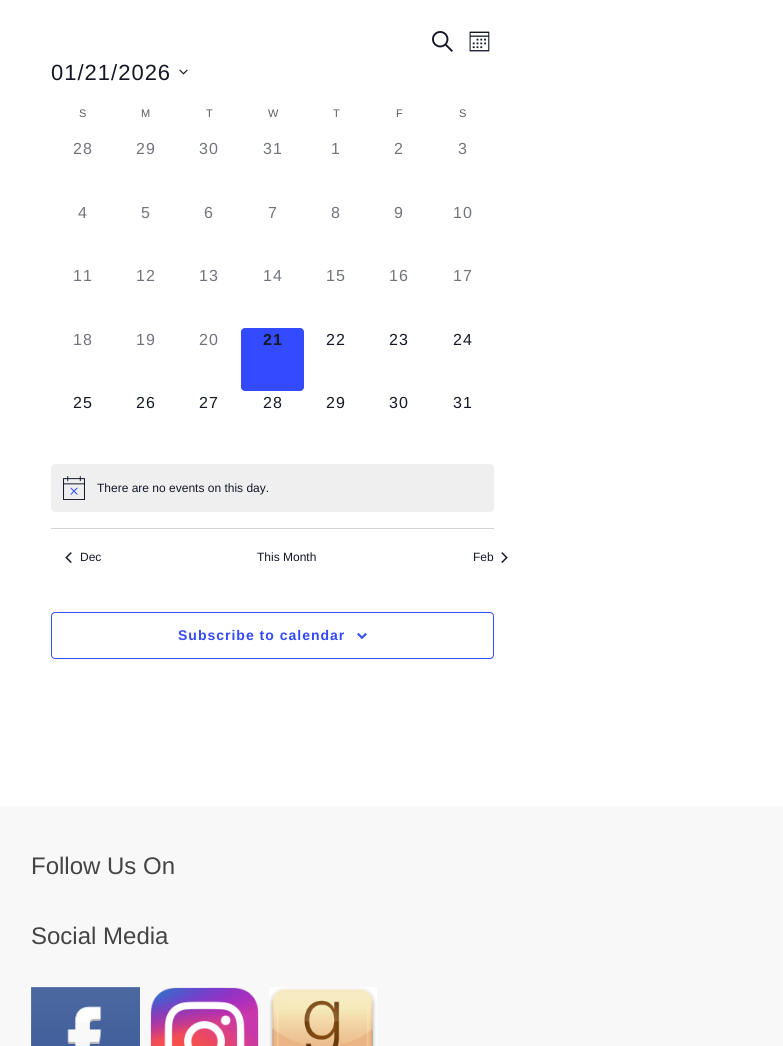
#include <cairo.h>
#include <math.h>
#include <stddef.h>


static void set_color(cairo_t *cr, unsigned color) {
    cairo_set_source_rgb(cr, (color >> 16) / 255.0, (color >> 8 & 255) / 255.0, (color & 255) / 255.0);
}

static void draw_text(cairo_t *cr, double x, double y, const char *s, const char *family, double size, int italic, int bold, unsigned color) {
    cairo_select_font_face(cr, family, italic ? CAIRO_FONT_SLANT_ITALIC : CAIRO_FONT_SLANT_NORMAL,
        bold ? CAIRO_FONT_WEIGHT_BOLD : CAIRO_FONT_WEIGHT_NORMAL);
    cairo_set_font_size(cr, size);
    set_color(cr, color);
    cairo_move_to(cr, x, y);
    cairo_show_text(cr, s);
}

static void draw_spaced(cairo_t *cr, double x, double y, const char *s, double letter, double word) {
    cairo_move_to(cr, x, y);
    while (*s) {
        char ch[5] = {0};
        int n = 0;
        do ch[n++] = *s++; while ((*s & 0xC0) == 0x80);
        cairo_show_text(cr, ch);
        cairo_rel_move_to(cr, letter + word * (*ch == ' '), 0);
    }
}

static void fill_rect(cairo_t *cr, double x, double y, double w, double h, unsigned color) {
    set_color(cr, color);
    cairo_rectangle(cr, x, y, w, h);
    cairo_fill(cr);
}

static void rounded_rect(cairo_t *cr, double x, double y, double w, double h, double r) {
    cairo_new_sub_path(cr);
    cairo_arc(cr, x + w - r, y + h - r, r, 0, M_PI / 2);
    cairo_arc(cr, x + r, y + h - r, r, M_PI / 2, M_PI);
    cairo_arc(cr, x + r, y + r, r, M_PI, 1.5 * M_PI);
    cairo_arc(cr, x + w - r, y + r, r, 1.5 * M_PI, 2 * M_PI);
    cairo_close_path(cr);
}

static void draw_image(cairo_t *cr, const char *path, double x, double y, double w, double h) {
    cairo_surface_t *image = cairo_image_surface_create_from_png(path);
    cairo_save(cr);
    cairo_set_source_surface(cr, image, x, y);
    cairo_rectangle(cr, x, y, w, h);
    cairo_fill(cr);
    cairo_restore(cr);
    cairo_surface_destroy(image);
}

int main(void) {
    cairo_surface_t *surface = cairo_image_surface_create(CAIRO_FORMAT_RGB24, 783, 1046);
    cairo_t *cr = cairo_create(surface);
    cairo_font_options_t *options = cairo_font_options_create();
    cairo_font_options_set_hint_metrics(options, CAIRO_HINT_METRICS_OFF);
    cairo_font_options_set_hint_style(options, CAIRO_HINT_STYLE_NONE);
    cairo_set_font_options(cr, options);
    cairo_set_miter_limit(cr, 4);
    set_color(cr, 0xFFFFFF);
    cairo_paint(cr);
    draw_image(cr, "assets/img1.png", 432, 31, 21, 21);
    draw_image(cr, "assets/img2.png", 469, 31, 21, 21);
    cairo_select_font_face(cr, "Liberation Sans", CAIRO_FONT_SLANT_NORMAL, CAIRO_FONT_WEIGHT_NORMAL);
    cairo_set_font_size(cr, 22);
    set_color(cr, 0x141827);
    draw_spaced(cr, 51, 80, "01/21/2026", 1, 0);
    draw_image(cr, "assets/img3.png", 179, 69, 9, 6);
    draw_text(cr, 79, 117, "S", "Liberation Sans", 11, 0, 0, 0x5D5D5D);
    draw_text(cr, 141, 117, "M", "Liberation Sans", 11, 0, 0, 0x5D5D5D);
    draw_text(cr, 206, 117, "T", "Liberation Sans", 11, 0, 0, 0x5D5D5D);
    draw_text(cr, 268, 117, "W", "Liberation Sans", 11, 0, 0, 0x5D5D5D);
    draw_text(cr, 333, 117, "T", "Liberation Sans", 11, 0, 0, 0x5D5D5D);
    draw_text(cr, 396, 117, "F", "Liberation Sans", 11, 0, 0, 0x5D5D5D);
    draw_text(cr, 459, 117, "S", "Liberation Sans", 11, 0, 0, 0x5D5D5D);
    cairo_set_font_size(cr, 16);
    set_color(cr, 0x72747D);
    draw_spaced(cr, 73, 154, "28", 1, 0);
    draw_spaced(cr, 136, 154, "29", 1, 0);
    draw_spaced(cr, 199, 154, "30", 1, 0);
    draw_spaced(cr, 263, 154, "31", 1, 0);
    draw_spaced(cr, 331, 154, "1", 1, 0);
    draw_spaced(cr, 394, 154, "2", 1, 0);
    draw_spaced(cr, 458, 154, "3", 1, 0);
    draw_spaced(cr, 78, 218, "4", 1, 0);
    draw_spaced(cr, 141, 218, "5", 1, 0);
    draw_spaced(cr, 204, 218, "6", 1, 0);
    draw_spaced(cr, 268, 218, "7", 1, 0);
    draw_spaced(cr, 331, 218, "8", 1, 0);
    draw_spaced(cr, 394, 218, "9", 1, 0);
    draw_spaced(cr, 453, 218, "10", 1, 0);
    draw_spaced(cr, 73, 281, "11", 1, 0);
    draw_spaced(cr, 136, 281, "12", 1, 0);
    draw_spaced(cr, 199, 281, "13", 1, 0);
    draw_spaced(cr, 263, 281, "14", 1, 0);
    draw_spaced(cr, 326, 281, "15", 1, 0);
    draw_spaced(cr, 389, 281, "16", 1, 0);
    draw_spaced(cr, 453, 281, "17", 1, 0);
    draw_spaced(cr, 73, 345, "18", 1, 0);
    draw_spaced(cr, 136, 345, "19", 1, 0);
    draw_spaced(cr, 199, 345, "20", 1, 0);
    set_color(cr, 0x334AFF);
    rounded_rect(cr, 241, 328, 63, 63, 4);
    cairo_fill(cr);
    cairo_select_font_face(cr, "Liberation Sans", CAIRO_FONT_SLANT_NORMAL, CAIRO_FONT_WEIGHT_BOLD);
    set_color(cr, 0x141827);
    draw_spaced(cr, 263, 345, "21", 1, 0);
    cairo_select_font_face(cr, "Liberation Sans", CAIRO_FONT_SLANT_NORMAL, CAIRO_FONT_WEIGHT_NORMAL);
    draw_spaced(cr, 326, 345, "22", 1, 0);
    draw_spaced(cr, 389, 345, "23", 1, 0);
    draw_spaced(cr, 453, 345, "24", 1, 0);
    draw_spaced(cr, 73, 408, "25", 1, 0);
    draw_spaced(cr, 136, 408, "26", 1, 0);
    draw_spaced(cr, 199, 408, "27", 1, 0);
    draw_spaced(cr, 263, 408, "28", 1, 0);
    draw_spaced(cr, 326, 408, "29", 1, 0);
    draw_spaced(cr, 389, 408, "30", 1, 0);
    draw_spaced(cr, 453, 408, "31", 1, 0);
    set_color(cr, 0xEFEFF0);
    rounded_rect(cr, 51, 464, 443, 48, 4);
    cairo_fill(cr);
    draw_image(cr, "assets/img4.png", 63, 476, 22, 24);
    draw_text(cr, 97, 492, "There are no events on this day.", "Liberation Sans", 12, 0, 0, 0x141827);
    fill_rect(cr, 51, 528, 443, 1, 0xD5D5D5);
    draw_image(cr, "assets/img5.png", 65, 552, 7, 11);
    draw_text(cr, 80, 561, "Dec", "Liberation Sans", 12, 0, 0, 0x141827);
    draw_text(cr, 257, 561, "This Month", "Liberation Sans", 12, 0, 0, 0x141827);
    draw_text(cr, 473, 561, "Feb", "Liberation Sans", 12, 0, 0, 0x141827);
    draw_image(cr, "assets/img6.png", 501, 552, 7, 11);
    rounded_rect(cr, 51.5, 612.5, 442, 46, 3.5);
    set_color(cr, 0x334AFF);
    cairo_set_line_width(cr, 1);
    cairo_stroke(cr);
    cairo_select_font_face(cr, "Liberation Sans", CAIRO_FONT_SLANT_NORMAL, CAIRO_FONT_WEIGHT_BOLD);
    cairo_set_font_size(cr, 14);
    draw_spaced(cr, 178, 640, "Subscribe to calendar", 1, 0);
    draw_image(cr, "assets/img7.png", 357, 633, 10, 6);
    fill_rect(cr, 0, 806, 783, 240, 0xF8F8F8);
    draw_text(cr, 31, 874, "Follow Us On", "Liberation Sans", 24, 0, 0, 0x444444);
    draw_text(cr, 31, 944, "Social Media", "Liberation Sans", 24, 0, 0, 0x444444);
    draw_image(cr, "assets/img8.png", 31, 987, 109, 59);
    draw_image(cr, "assets/img9.png", 150, 987, 109, 59);
    draw_image(cr, "assets/img10.png", 269, 987, 108, 59);
    cairo_surface_write_to_png(surface, "output.png");
    cairo_font_options_destroy(options);
    cairo_destroy(cr);
    cairo_surface_destroy(surface);
    return 0;
}
